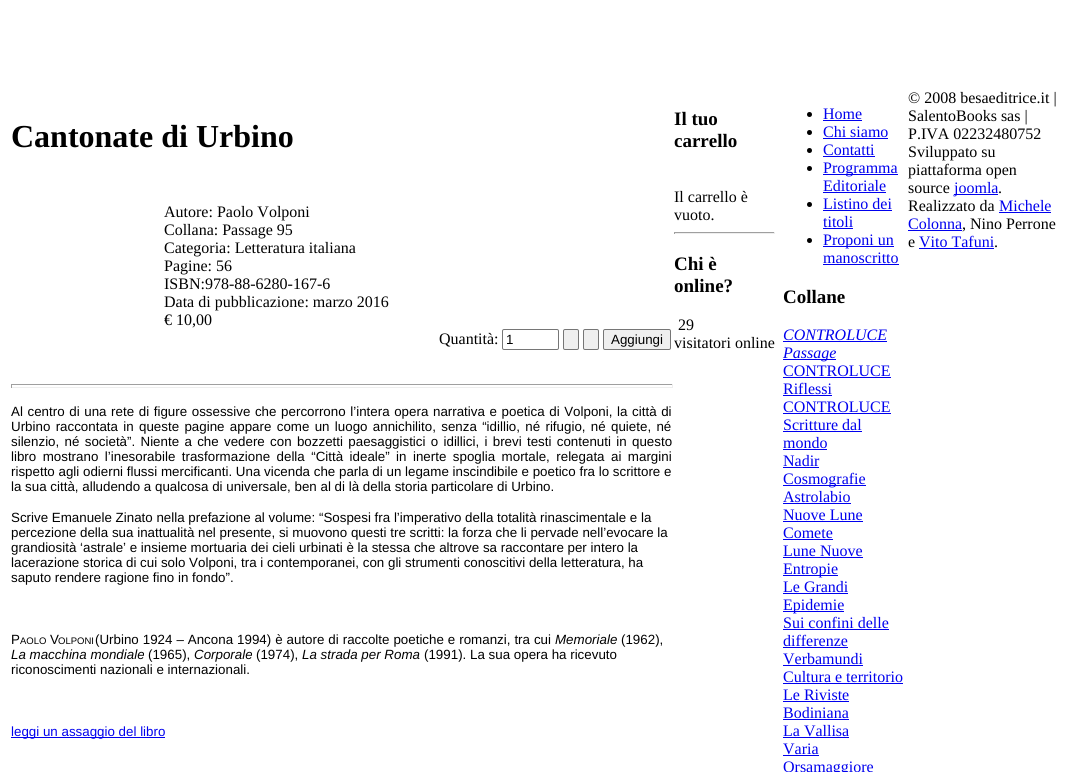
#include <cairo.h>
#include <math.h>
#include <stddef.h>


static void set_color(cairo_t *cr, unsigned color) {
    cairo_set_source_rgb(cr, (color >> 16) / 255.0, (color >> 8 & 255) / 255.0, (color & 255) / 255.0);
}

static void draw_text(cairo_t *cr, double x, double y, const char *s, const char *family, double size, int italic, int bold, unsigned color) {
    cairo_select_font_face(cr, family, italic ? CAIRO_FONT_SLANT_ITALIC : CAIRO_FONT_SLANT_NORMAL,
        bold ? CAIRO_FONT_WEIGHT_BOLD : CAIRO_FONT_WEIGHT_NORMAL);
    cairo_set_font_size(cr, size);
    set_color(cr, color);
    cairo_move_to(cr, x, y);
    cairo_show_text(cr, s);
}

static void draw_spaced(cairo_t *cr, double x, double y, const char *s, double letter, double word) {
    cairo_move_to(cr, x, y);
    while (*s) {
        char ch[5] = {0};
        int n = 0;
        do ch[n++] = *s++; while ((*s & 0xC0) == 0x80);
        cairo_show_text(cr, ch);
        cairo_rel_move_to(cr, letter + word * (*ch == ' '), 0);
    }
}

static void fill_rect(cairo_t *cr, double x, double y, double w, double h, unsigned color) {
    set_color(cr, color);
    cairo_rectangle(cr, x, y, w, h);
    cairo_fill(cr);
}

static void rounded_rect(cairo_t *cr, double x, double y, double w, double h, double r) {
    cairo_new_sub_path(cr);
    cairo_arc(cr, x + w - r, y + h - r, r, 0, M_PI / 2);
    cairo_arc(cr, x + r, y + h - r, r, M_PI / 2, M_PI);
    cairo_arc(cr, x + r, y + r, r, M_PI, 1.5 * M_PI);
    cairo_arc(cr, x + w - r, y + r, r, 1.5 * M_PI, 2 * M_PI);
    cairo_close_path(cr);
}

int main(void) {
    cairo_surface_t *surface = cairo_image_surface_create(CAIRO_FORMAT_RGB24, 1070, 772);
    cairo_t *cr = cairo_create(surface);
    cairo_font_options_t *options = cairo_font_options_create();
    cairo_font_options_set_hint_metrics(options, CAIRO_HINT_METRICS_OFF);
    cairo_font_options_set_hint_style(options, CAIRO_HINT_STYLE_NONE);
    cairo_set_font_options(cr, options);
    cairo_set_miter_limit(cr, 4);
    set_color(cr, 0xFFFFFF);
    cairo_paint(cr);
    draw_text(cr, 11, 147, "Cantonate di Urbino", "Liberation Serif", 32, 0, 1, 0x000000);
    draw_text(cr, 164, 217, "Autore: Paolo Volponi", "Liberation Serif", 16, 0, 0, 0x000000);
    draw_text(cr, 164, 235, "Collana: Passage 95", "Liberation Serif", 16, 0, 0, 0x000000);
    draw_text(cr, 164, 253, "Categoria: Letteratura italiana", "Liberation Serif", 16, 0, 0, 0x000000);
    draw_text(cr, 164, 271, "Pagine: 56", "Liberation Serif", 16, 0, 0, 0x000000);
    draw_text(cr, 164, 289, "ISBN:978-88-6280-167-6", "Liberation Serif", 16, 0, 0, 0x000000);
    draw_text(cr, 164, 307, "Data di pubblicazione: marzo 2016", "Liberation Serif", 16, 0, 0, 0x000000);
    draw_text(cr, 164, 325, "€ 10,00", "Liberation Serif", 16, 0, 0, 0x000000);
    draw_text(cr, 439, 344, "Quantità:", "Liberation Serif", 16, 0, 0, 0x000000);
    rounded_rect(cr, 502.5, 329.5, 56, 20, 1.5);
    set_color(cr, 0x767676);
    cairo_set_line_width(cr, 1);
    cairo_stroke(cr);
    draw_text(cr, 506, 344, "1", "Liberation Sans", 13.35, 0, 0, 0x000000);
    set_color(cr, 0xEFEFEF);
    rounded_rect(cr, 563.5, 329.5, 15, 20, 1.5);
    cairo_fill_preserve(cr);
    set_color(cr, 0x767676);
    cairo_stroke(cr);
    set_color(cr, 0xEFEFEF);
    rounded_rect(cr, 583.5, 329.5, 15, 20, 1.5);
    cairo_fill_preserve(cr);
    set_color(cr, 0x767676);
    cairo_stroke(cr);
    set_color(cr, 0xEFEFEF);
    rounded_rect(cr, 603.5, 329.5, 67, 20, 1.5);
    cairo_fill_preserve(cr);
    set_color(cr, 0x767676);
    cairo_stroke(cr);
    draw_text(cr, 611, 344, "Aggiungi", "Liberation Sans", 13.35, 0, 0, 0x000000);
    fill_rect(cr, 11, 384, 662, 1, 0x9F9F9F);
    fill_rect(cr, 672, 384, 1, 4, 0xEEEEEE);
    fill_rect(cr, 11, 387, 662, 1, 0xEEEEEE);
    fill_rect(cr, 11, 384, 1, 4, 0x9F9F9F);
    set_color(cr, 0x000000);
    draw_spaced(cr, 11, 416, "Al centro di una rete di figure ossessive che percorrono l’intera opera narrativa e poetica di Volponi, la città di", 0, 0.9);
    draw_spaced(cr, 11, 431, "Urbino raccontata in queste pagine appare come un luogo annichilito, senza “idillio, né rifugio, né quiete, né", 0, 1.6);
    draw_spaced(cr, 11, 446, "silenzio, né società”. Niente a che vedere con bozzetti paesaggistici o idillici, i brevi testi contenuti in questo", 0, 1.6);
    draw_spaced(cr, 11, 461, "libro mostrano l’inesorabile trasformazione della “Città ideale” in inerte spoglia mortale, relegata ai margini", 0, 2.75);
    draw_text(cr, 11, 476, "rispetto agli odierni flussi mercificanti. Una vicenda che parla di un legame inscindibile e poetico fra lo scrittore e", "Liberation Sans", 13.35, 0, 0, 0x000000);
    draw_text(cr, 11, 491, "la sua città, alludendo a qualcosa di universale, ben al di là della storia particolare di Urbino.", "Liberation Sans", 13.35, 0, 0, 0x000000);
    draw_text(cr, 11, 522, "Scrive Emanuele Zinato nella prefazione al volume: “Sospesi fra l’imperativo della totalità rinascimentale e la", "Liberation Sans", 13.35, 0, 0, 0x000000);
    draw_text(cr, 11, 537, "percezione della sua inattualità nel presente, si muovono questi tre scritti: la forza che li pervade nell’evocare la", "Liberation Sans", 13.35, 0, 0, 0x000000);
    draw_text(cr, 11, 552, "grandiosità ‘astrale’ e insieme mortuaria dei cieli urbinati è la stessa che altrove sa raccontare per intero la", "Liberation Sans", 13.35, 0, 0, 0x000000);
    draw_text(cr, 11, 567, "lacerazione storica di cui solo Volponi, tra i contemporanei, con gli strumenti conoscitivi della letteratura, ha", "Liberation Sans", 13.35, 0, 0, 0x000000);
    draw_text(cr, 11, 582, "saputo rendere ragione fino in fondo”.", "Liberation Sans", 13.35, 0, 0, 0x000000);
    draw_text(cr, 11, 644, "P", "Liberation Sans", 13.35, 0, 0, 0x000000);
    draw_text(cr, 20, 644, "AOLO", "Liberation Sans", 9.5, 0, 0, 0x000000);
    draw_text(cr, 50, 644, "V", "Liberation Sans", 13.35, 0, 0, 0x000000);
    draw_text(cr, 58, 644, "OLPONI", "Liberation Sans", 9.5, 0, 0, 0x000000);
    cairo_set_font_size(cr, 13.35);
    draw_spaced(cr, 95, 644, "(Urbino 1924 – Ancona 1994) è autore di raccolte poetiche e romanzi, tra cui", 0, 0.25);
    draw_text(cr, 555, 644, "Memoriale", "Liberation Sans", 13.35, 1, 0, 0x000000);
    draw_text(cr, 621, 644, "(1962),", "Liberation Sans", 13.35, 0, 0, 0x000000);
    draw_text(cr, 11, 659, "La macchina mondiale", "Liberation Sans", 13.35, 1, 0, 0x000000);
    draw_text(cr, 148, 659, "(1965),", "Liberation Sans", 13.35, 0, 0, 0x000000);
    draw_text(cr, 194, 659, "Corporale", "Liberation Sans", 13.35, 1, 0, 0x000000);
    draw_text(cr, 256, 659, "(1974),", "Liberation Sans", 13.35, 0, 0, 0x000000);
    draw_text(cr, 302, 659, "La strada per Roma", "Liberation Sans", 13.35, 1, 0, 0x000000);
    draw_text(cr, 424, 659, "(1991). La sua opera ha ricevuto", "Liberation Sans", 13.35, 0, 0, 0x000000);
    draw_text(cr, 11, 674, "riconoscimenti nazionali e internazionali.", "Liberation Sans", 13.35, 0, 0, 0x000000);
    fill_rect(cr, 11, 737, 154, 1, 0x0000EE);
    draw_text(cr, 11, 736, "leggi un assaggio del libro", "Liberation Sans", 13.35, 0, 0, 0x0000EE);
    draw_text(cr, 674, 125, "Il tuo", "Liberation Serif", 19, 0, 1, 0x000000);
    draw_text(cr, 674, 147, "carrello", "Liberation Serif", 19, 0, 1, 0x000000);
    draw_text(cr, 674, 202, "Il carrello è", "Liberation Serif", 16, 0, 0, 0x000000);
    draw_text(cr, 674, 220, "vuoto.", "Liberation Serif", 16, 0, 0, 0x000000);
    fill_rect(cr, 674, 232, 101, 1, 0x9F9F9F);
    fill_rect(cr, 774, 232, 1, 2, 0xEEEEEE);
    fill_rect(cr, 674, 233, 101, 1, 0xEEEEEE);
    fill_rect(cr, 674, 232, 1, 2, 0x9F9F9F);
    draw_text(cr, 674, 270, "Chi è", "Liberation Serif", 19, 0, 1, 0x000000);
    draw_text(cr, 674, 292, "online?", "Liberation Serif", 19, 0, 1, 0x000000);
    draw_text(cr, 678, 330, "29", "Liberation Serif", 16, 0, 0, 0x000000);
    draw_text(cr, 674, 348, "visitatori online", "Liberation Serif", 16, 0, 0, 0x000000);
    cairo_new_path(cr);
    cairo_arc(cr, 809.5, 114.5, 2.5, 0, 2 * M_PI);
    cairo_fill(cr);
    draw_text(cr, 823, 119, "Home", "Liberation Serif", 16, 0, 0, 0x0000EE);
    fill_rect(cr, 823, 120, 39, 1, 0x0000EE);
    set_color(cr, 0x000000);
    cairo_new_path(cr);
    cairo_arc(cr, 809.5, 132.5, 2.5, 0, 2 * M_PI);
    cairo_fill(cr);
    draw_text(cr, 823, 137, "Chi siamo", "Liberation Serif", 16, 0, 0, 0x0000EE);
    fill_rect(cr, 823, 138, 65, 1, 0x0000EE);
    set_color(cr, 0x000000);
    cairo_new_path(cr);
    cairo_arc(cr, 809.5, 150.5, 2.5, 0, 2 * M_PI);
    cairo_fill(cr);
    draw_text(cr, 823, 155, "Contatti", "Liberation Serif", 16, 0, 0, 0x0000EE);
    fill_rect(cr, 823, 156, 52, 1, 0x0000EE);
    set_color(cr, 0x000000);
    cairo_new_path(cr);
    cairo_arc(cr, 809.5, 168.5, 2.5, 0, 2 * M_PI);
    cairo_fill(cr);
    fill_rect(cr, 823, 174, 75, 1, 0x0000EE);
    draw_text(cr, 823, 173, "Programma", "Liberation Serif", 16, 0, 0, 0x0000EE);
    draw_text(cr, 823, 191, "Editoriale", "Liberation Serif", 16, 0, 0, 0x0000EE);
    fill_rect(cr, 823, 192, 63, 1, 0x0000EE);
    set_color(cr, 0x000000);
    cairo_new_path(cr);
    cairo_arc(cr, 809.5, 204.5, 2.5, 0, 2 * M_PI);
    cairo_fill(cr);
    draw_text(cr, 823, 209, "Listino dei", "Liberation Serif", 16, 0, 0, 0x0000EE);
    fill_rect(cr, 823, 210, 69, 1, 0x0000EE);
    draw_text(cr, 823, 227, "titoli", "Liberation Serif", 16, 0, 0, 0x0000EE);
    fill_rect(cr, 823, 228, 30, 1, 0x0000EE);
    set_color(cr, 0x000000);
    cairo_new_path(cr);
    cairo_arc(cr, 809.5, 240.5, 2.5, 0, 2 * M_PI);
    cairo_fill(cr);
    fill_rect(cr, 823, 246, 71, 1, 0x0000EE);
    draw_text(cr, 823, 245, "Proponi un", "Liberation Serif", 16, 0, 0, 0x0000EE);
    draw_text(cr, 823, 263, "manoscritto", "Liberation Serif", 16, 0, 0, 0x0000EE);
    fill_rect(cr, 823, 264, 76, 1, 0x0000EE);
    draw_text(cr, 783, 303, "Collane", "Liberation Serif", 19, 0, 1, 0x000000);
    draw_text(cr, 783, 340, "CONTROLUCE", "Liberation Serif", 16, 1, 0, 0x0000EE);
    fill_rect(cr, 783, 341, 104, 1, 0x0000EE);
    fill_rect(cr, 783, 359, 53, 1, 0x0000EE);
    draw_text(cr, 783, 358, "Passage", "Liberation Serif", 16, 1, 0, 0x0000EE);
    draw_text(cr, 783, 376, "CONTROLUCE", "Liberation Serif", 16, 0, 0, 0x0000EE);
    fill_rect(cr, 783, 377, 108, 1, 0x0000EE);
    draw_text(cr, 783, 394, "Riflessi", "Liberation Serif", 16, 0, 0, 0x0000EE);
    fill_rect(cr, 783, 395, 49, 1, 0x0000EE);
    draw_text(cr, 783, 412, "CONTROLUCE", "Liberation Serif", 16, 0, 0, 0x0000EE);
    fill_rect(cr, 783, 413, 108, 1, 0x0000EE);
    draw_text(cr, 783, 430, "Scritture dal", "Liberation Serif", 16, 0, 0, 0x0000EE);
    fill_rect(cr, 783, 431, 79, 1, 0x0000EE);
    draw_text(cr, 783, 448, "mondo", "Liberation Serif", 16, 0, 0, 0x0000EE);
    fill_rect(cr, 783, 449, 44, 1, 0x0000EE);
    draw_text(cr, 783, 466, "Nadir", "Liberation Serif", 16, 0, 0, 0x0000EE);
    fill_rect(cr, 783, 467, 36, 1, 0x0000EE);
    fill_rect(cr, 783, 485, 83, 1, 0x0000EE);
    draw_text(cr, 783, 484, "Cosmografie", "Liberation Serif", 16, 0, 0, 0x0000EE);
    draw_text(cr, 783, 502, "Astrolabio", "Liberation Serif", 16, 0, 0, 0x0000EE);
    fill_rect(cr, 783, 503, 68, 1, 0x0000EE);
    draw_text(cr, 783, 520, "Nuove Lune", "Liberation Serif", 16, 0, 0, 0x0000EE);
    fill_rect(cr, 783, 521, 80, 1, 0x0000EE);
    draw_text(cr, 783, 538, "Comete", "Liberation Serif", 16, 0, 0, 0x0000EE);
    fill_rect(cr, 783, 539, 50, 1, 0x0000EE);
    draw_text(cr, 783, 556, "Lune Nuove", "Liberation Serif", 16, 0, 0, 0x0000EE);
    fill_rect(cr, 783, 557, 80, 1, 0x0000EE);
    fill_rect(cr, 783, 575, 55, 1, 0x0000EE);
    draw_text(cr, 783, 574, "Entropie", "Liberation Serif", 16, 0, 0, 0x0000EE);
    draw_text(cr, 783, 592, "Le Grandi", "Liberation Serif", 16, 0, 0, 0x0000EE);
    fill_rect(cr, 783, 593, 65, 1, 0x0000EE);
    fill_rect(cr, 783, 611, 61, 1, 0x0000EE);
    draw_text(cr, 783, 610, "Epidemie", "Liberation Serif", 16, 0, 0, 0x0000EE);
    draw_text(cr, 783, 628, "Sui confini delle", "Liberation Serif", 16, 0, 0, 0x0000EE);
    fill_rect(cr, 783, 629, 106, 1, 0x0000EE);
    draw_text(cr, 783, 646, "differenze", "Liberation Serif", 16, 0, 0, 0x0000EE);
    fill_rect(cr, 783, 647, 65, 1, 0x0000EE);
    draw_text(cr, 783, 664, "Verbamundi", "Liberation Serif", 16, 0, 0, 0x0000EE);
    fill_rect(cr, 783, 665, 80, 1, 0x0000EE);
    draw_text(cr, 783, 682, "Cultura e territorio", "Liberation Serif", 16, 0, 0, 0x0000EE);
    fill_rect(cr, 783, 683, 120, 1, 0x0000EE);
    draw_text(cr, 783, 700, "Le Riviste", "Liberation Serif", 16, 0, 0, 0x0000EE);
    fill_rect(cr, 783, 701, 66, 1, 0x0000EE);
    draw_text(cr, 783, 718, "Bodiniana", "Liberation Serif", 16, 0, 0, 0x0000EE);
    fill_rect(cr, 783, 719, 66, 1, 0x0000EE);
    draw_text(cr, 783, 736, "La Vallisa", "Liberation Serif", 16, 0, 0, 0x0000EE);
    fill_rect(cr, 783, 737, 66, 1, 0x0000EE);
    draw_text(cr, 783, 754, "Varia", "Liberation Serif", 16, 0, 0, 0x0000EE);
    fill_rect(cr, 783, 755, 36, 1, 0x0000EE);
    draw_text(cr, 783, 772, "Orsamaggiore", "Liberation Serif", 16, 0, 0, 0x0000EE);
    draw_text(cr, 908, 103, "© 2008 besaeditrice.it |", "Liberation Serif", 16, 0, 0, 0x000000);
    draw_text(cr, 908, 121, "SalentoBooks sas |", "Liberation Serif", 16, 0, 0, 0x000000);
    draw_text(cr, 908, 139, "P.IVA 02232480752", "Liberation Serif", 16, 0, 0, 0x000000);
    draw_text(cr, 908, 157, "Sviluppato su", "Liberation Serif", 16, 0, 0, 0x000000);
    draw_text(cr, 908, 175, "piattaforma open", "Liberation Serif", 16, 0, 0, 0x000000);
    draw_text(cr, 908, 193, "source", "Liberation Serif", 16, 0, 0, 0x000000);
    fill_rect(cr, 954, 194, 44, 1, 0x0000EE);
    draw_text(cr, 954, 193, "joomla", "Liberation Serif", 16, 0, 0, 0x0000EE);
    draw_text(cr, 998, 193, ".", "Liberation Serif", 16, 0, 0, 0x000000);
    draw_text(cr, 908, 211, "Realizzato da", "Liberation Serif", 16, 0, 0, 0x000000);
    draw_text(cr, 999, 211, "Michele", "Liberation Serif", 16, 0, 0, 0x0000EE);
    fill_rect(cr, 999, 212, 52, 1, 0x0000EE);
    draw_text(cr, 908, 229, "Colonna", "Liberation Serif", 16, 0, 0, 0x0000EE);
    fill_rect(cr, 908, 230, 54, 1, 0x0000EE);
    draw_text(cr, 962, 229, ", Nino Perrone", "Liberation Serif", 16, 0, 0, 0x000000);
    draw_text(cr, 908, 247, "e", "Liberation Serif", 16, 0, 0, 0x000000);
    draw_text(cr, 919, 247, "Vito Tafuni", "Liberation Serif", 16, 0, 0, 0x0000EE);
    fill_rect(cr, 919, 248, 75, 1, 0x0000EE);
    draw_text(cr, 994, 247, ".", "Liberation Serif", 16, 0, 0, 0x000000);
    cairo_surface_write_to_png(surface, "output.png");
    cairo_font_options_destroy(options);
    cairo_destroy(cr);
    cairo_surface_destroy(surface);
    return 0;
}
